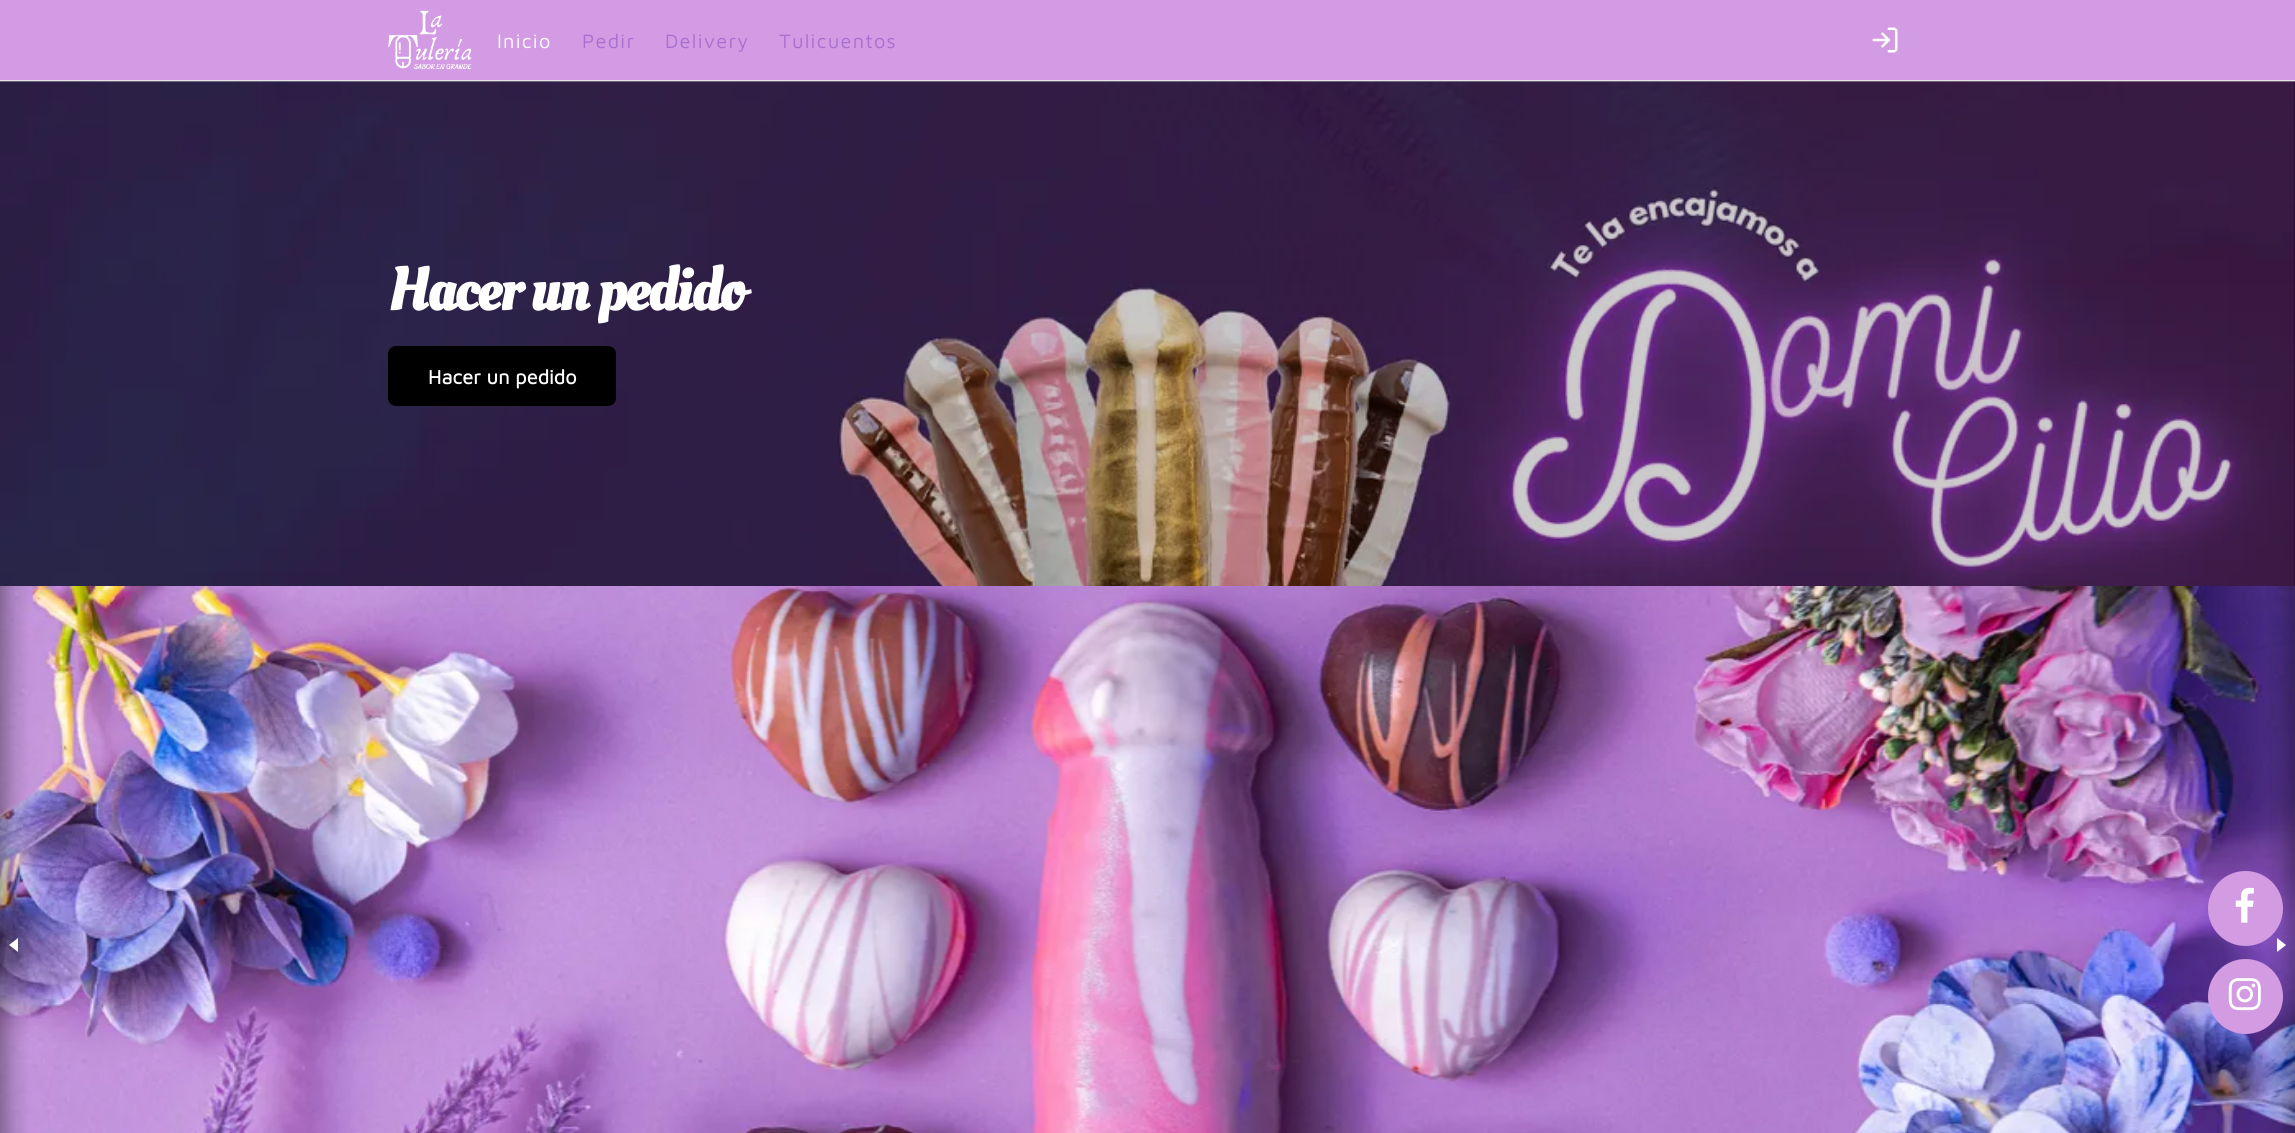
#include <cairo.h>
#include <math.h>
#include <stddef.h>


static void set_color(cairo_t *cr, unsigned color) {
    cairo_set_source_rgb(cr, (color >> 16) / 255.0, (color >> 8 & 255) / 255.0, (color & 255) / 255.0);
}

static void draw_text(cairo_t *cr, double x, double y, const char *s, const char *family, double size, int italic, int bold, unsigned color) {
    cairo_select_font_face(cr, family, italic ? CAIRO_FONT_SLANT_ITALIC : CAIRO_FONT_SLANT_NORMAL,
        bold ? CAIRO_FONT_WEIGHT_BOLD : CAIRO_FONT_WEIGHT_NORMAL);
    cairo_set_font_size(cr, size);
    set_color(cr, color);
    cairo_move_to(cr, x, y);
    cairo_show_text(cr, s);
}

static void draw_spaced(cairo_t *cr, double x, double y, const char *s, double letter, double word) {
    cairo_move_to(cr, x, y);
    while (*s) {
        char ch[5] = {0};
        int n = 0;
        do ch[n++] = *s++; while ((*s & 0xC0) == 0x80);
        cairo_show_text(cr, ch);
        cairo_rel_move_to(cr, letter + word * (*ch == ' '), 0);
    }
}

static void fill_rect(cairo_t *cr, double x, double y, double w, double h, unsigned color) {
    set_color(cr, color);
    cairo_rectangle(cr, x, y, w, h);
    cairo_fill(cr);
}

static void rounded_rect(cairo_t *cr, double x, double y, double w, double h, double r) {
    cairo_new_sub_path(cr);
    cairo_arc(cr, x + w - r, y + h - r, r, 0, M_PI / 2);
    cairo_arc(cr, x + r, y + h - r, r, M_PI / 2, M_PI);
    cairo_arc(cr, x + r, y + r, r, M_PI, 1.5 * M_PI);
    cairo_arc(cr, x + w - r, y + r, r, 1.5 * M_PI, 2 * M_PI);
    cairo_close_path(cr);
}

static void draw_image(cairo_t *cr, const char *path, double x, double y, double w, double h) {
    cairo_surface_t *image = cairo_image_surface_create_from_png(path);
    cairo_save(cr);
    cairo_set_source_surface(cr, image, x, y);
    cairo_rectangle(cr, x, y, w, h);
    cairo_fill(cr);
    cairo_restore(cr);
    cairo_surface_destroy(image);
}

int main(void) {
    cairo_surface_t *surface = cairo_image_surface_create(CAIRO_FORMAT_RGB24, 2295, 1133);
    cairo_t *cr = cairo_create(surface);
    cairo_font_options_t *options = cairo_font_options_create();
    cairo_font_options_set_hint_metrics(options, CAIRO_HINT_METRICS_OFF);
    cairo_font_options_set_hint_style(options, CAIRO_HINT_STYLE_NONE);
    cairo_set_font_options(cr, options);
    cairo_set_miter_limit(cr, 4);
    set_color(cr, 0xFFFFFF);
    cairo_paint(cr);
    fill_rect(cr, 0, 81, 2295, 1, 0xC7BDCC);
    fill_rect(cr, 0, 0, 2295, 80, 0xD29BE3);
    fill_rect(cr, 0, 80, 2295, 1, 0xE5E5E5);
    draw_image(cr, "assets/img1.png", 388, 10, 84, 60);
    cairo_select_font_face(cr, "Maven Pro", CAIRO_FONT_SLANT_NORMAL, CAIRO_FONT_WEIGHT_NORMAL);
    cairo_set_font_size(cr, 20);
    set_color(cr, 0xFFFFFF);
    draw_spaced(cr, 497, 48, "Inicio", 1.25, 0);
    set_color(cr, 0xA870CE);
    draw_spaced(cr, 582, 48, "Pedir", 1.25, 0);
    draw_spaced(cr, 665, 48, "Delivery", 1.25, 0);
    draw_spaced(cr, 779, 48, "Tulicuentos", 1.25, 0);
    draw_image(cr, "assets/img2.png", 1872, 27, 26, 26);
    draw_image(cr, "assets/img3.png", 0, 81, 2295, 506);
    cairo_select_font_face(cr, "Oleo Script", CAIRO_FONT_SLANT_NORMAL, CAIRO_FONT_WEIGHT_BOLD);
    cairo_set_font_size(cr, 60);
    set_color(cr, 0xFFFFFF);
    draw_spaced(cr, 388, 310, "Hacer un pedido", -1.5, 0);
    set_color(cr, 0x000000);
    rounded_rect(cr, 388, 346, 228, 60, 8);
    cairo_fill(cr);
    draw_text(cr, 428, 384, "Hacer un pedido", "Maven Pro", 20, 0, 1, 0xFFFFFF);
    draw_image(cr, "assets/img4.png", 0, 586, 2295, 547);
    cairo_new_path(cr);
    cairo_move_to(cr, 18, 938);
    cairo_line_to(cr, 18, 952);
    cairo_line_to(cr, 9, 945);
    cairo_close_path(cr);
    cairo_fill(cr);
    cairo_new_path(cr);
    cairo_move_to(cr, 2277, 952);
    cairo_line_to(cr, 2277, 938);
    cairo_line_to(cr, 2286, 945);
    cairo_close_path(cr);
    cairo_fill(cr);
    set_color(cr, 0xD29BE2);
    cairo_arc(cr, 2245.5, 908.5, 37.5, 0, 2 * M_PI);
    cairo_fill(cr);
    draw_image(cr, "assets/img5.png", 2235, 887, 19, 36);
    cairo_arc(cr, 2245.5, 996.5, 37.5, 0, 2 * M_PI);
    cairo_fill(cr);
    draw_image(cr, "assets/img6.png", 2228, 978, 33, 33);
    cairo_surface_write_to_png(surface, "output.png");
    cairo_font_options_destroy(options);
    cairo_destroy(cr);
    cairo_surface_destroy(surface);
    return 0;
}
